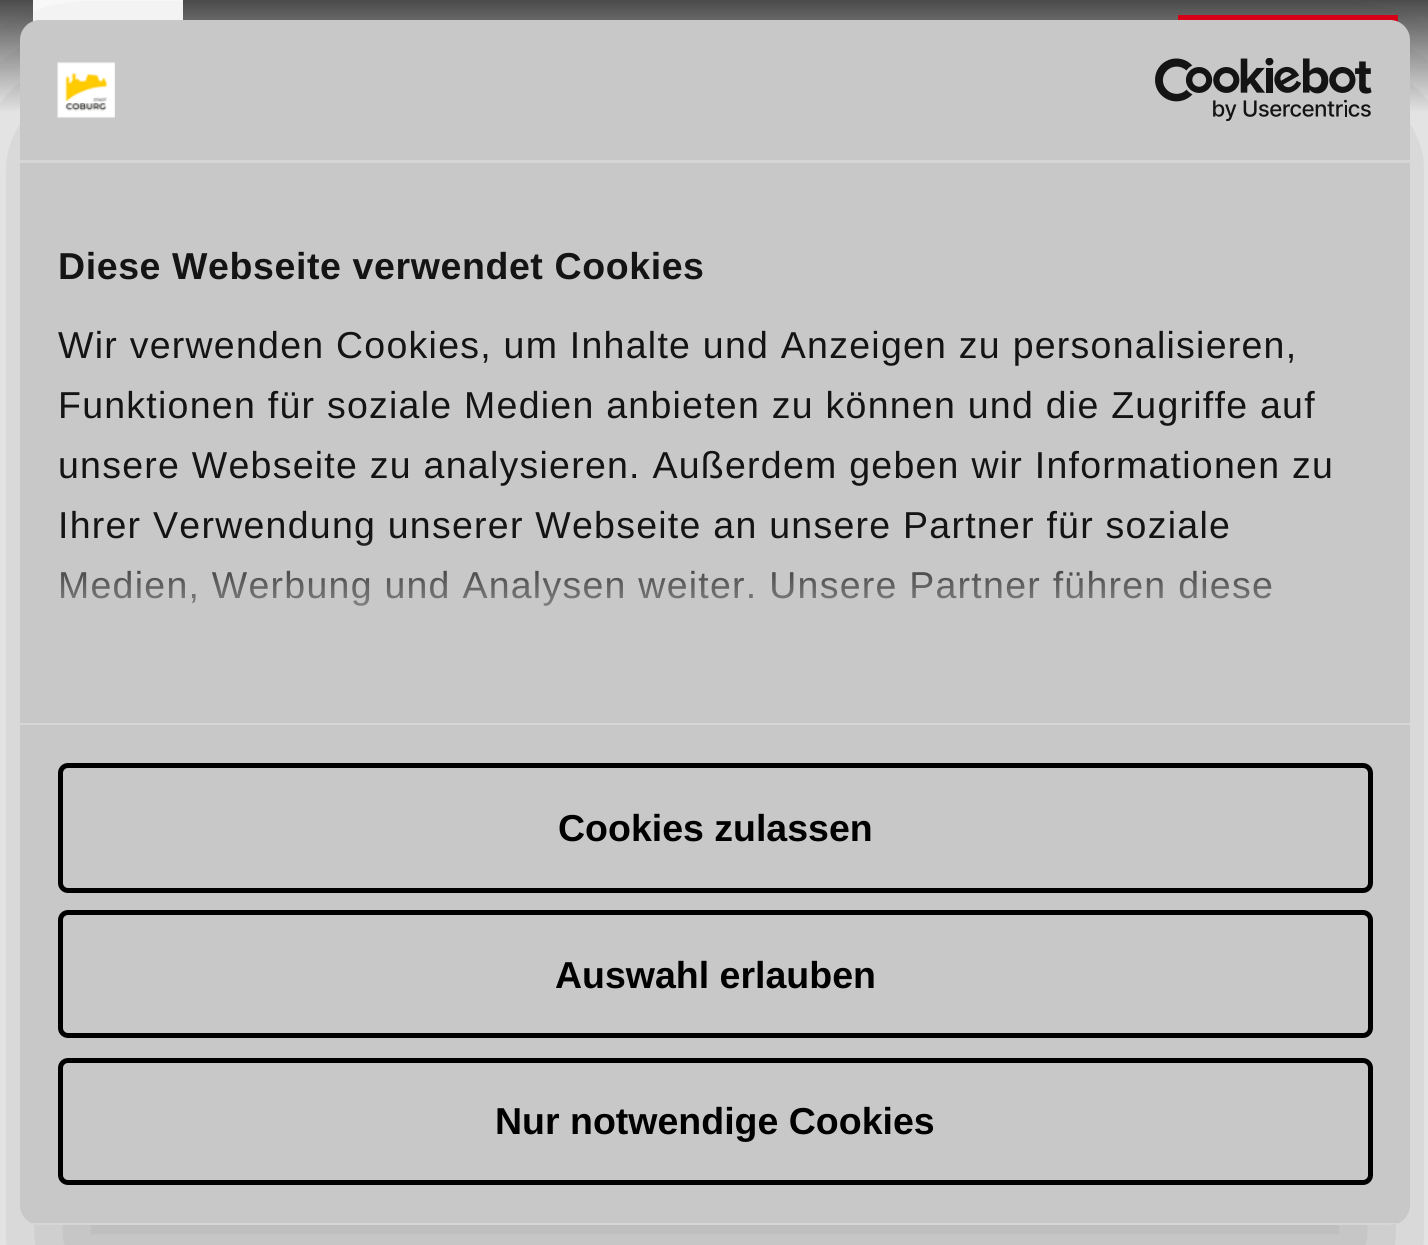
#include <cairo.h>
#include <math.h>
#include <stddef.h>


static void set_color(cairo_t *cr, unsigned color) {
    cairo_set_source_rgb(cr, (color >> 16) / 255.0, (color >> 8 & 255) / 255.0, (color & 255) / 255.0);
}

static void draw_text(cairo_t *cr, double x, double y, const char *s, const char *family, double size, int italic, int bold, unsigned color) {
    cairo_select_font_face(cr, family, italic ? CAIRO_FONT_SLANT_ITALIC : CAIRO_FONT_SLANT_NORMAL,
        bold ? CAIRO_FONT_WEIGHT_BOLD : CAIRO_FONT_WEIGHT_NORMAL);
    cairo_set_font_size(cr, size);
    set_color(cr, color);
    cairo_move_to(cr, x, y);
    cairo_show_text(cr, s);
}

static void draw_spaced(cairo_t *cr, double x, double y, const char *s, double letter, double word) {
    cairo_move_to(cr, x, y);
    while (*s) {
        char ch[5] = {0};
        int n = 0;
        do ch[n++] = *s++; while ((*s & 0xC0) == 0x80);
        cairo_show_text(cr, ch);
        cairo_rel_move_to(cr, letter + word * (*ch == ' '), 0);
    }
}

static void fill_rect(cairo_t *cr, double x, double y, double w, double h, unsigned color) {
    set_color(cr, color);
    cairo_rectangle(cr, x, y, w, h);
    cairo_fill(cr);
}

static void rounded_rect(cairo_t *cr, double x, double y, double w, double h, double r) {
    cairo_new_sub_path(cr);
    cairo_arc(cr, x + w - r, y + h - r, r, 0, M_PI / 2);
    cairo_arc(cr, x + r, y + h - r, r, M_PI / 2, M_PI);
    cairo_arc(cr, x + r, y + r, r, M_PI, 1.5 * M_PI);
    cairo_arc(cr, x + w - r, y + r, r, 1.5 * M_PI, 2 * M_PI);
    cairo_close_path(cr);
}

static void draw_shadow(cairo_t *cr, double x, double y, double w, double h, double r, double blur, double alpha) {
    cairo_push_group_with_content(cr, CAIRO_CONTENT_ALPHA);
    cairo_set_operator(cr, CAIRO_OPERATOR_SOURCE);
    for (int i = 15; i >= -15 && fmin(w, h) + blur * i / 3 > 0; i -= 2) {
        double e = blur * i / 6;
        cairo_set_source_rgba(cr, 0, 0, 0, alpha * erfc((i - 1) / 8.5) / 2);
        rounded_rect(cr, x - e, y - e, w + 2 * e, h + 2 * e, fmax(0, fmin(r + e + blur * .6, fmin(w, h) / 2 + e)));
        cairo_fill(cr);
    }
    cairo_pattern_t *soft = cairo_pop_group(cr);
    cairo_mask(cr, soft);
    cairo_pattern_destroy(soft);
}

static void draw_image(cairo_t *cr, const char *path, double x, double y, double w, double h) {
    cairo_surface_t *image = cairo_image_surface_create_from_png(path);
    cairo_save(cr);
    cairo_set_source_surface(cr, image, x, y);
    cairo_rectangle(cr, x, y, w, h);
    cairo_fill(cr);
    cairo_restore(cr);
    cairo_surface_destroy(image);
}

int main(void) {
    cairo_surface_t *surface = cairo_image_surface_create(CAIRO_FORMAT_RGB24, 1428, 1245);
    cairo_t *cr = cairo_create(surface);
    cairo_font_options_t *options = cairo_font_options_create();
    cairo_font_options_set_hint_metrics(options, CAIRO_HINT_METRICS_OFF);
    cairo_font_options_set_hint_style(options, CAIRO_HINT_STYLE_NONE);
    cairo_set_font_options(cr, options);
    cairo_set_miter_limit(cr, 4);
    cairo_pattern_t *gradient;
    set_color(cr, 0xFFFFFF);
    cairo_paint(cr);
    gradient = cairo_pattern_create_linear(715, 0, 715, 113);
    cairo_pattern_add_color_stop_rgba(gradient, 0, 0.302, 0.302, 0.302, 1);
    cairo_pattern_add_color_stop_rgba(gradient, 1, 1, 1, 1, 1);
    cairo_set_source(cr, gradient);
    cairo_pattern_destroy(gradient);
    cairo_rectangle(cr, 0, 0, 1428, 111);
    cairo_fill(cr);
    fill_rect(cr, 33, 0, 150, 22, 0xFFFFFF);
    cairo_rectangle(cr, 1180.5, 17.5, 105, 75);
    set_color(cr, 0xE30018);
    cairo_set_line_width(cr, 5);
    cairo_stroke(cr);
    fill_rect(cr, 1288, 15, 110, 7, 0xE30018);
    set_color(cr, 0x000000);
    draw_shadow(cr, 20, 100, 1390, 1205, 20, 85, 0.3);
    set_color(cr, 0xC8C8C8);
    rounded_rect(cr, 20, 20, 1390, 1205, 20);
    cairo_fill(cr);
    fill_rect(cr, 20, 160, 1390, 3, 0xD6D6D6);
    draw_image(cr, "assets/img1.png", 57, 62, 58, 56);
    draw_image(cr, "assets/img2.png", 1155, 58, 217, 63);
    fill_rect(cr, 20, 723, 1390, 2, 0xD6D6D6);
    cairo_select_font_face(cr, "Liberation Sans", CAIRO_FONT_SLANT_NORMAL, CAIRO_FONT_WEIGHT_BOLD);
    cairo_set_font_size(cr, 37.5);
    set_color(cr, 0x141414);
    draw_spaced(cr, 58, 279, "Diese Webseite verwendet Cookies", 0.6, 0);
    cairo_select_font_face(cr, "Liberation Sans", CAIRO_FONT_SLANT_NORMAL, CAIRO_FONT_WEIGHT_NORMAL);
    draw_spaced(cr, 58, 358, "Wir verwenden Cookies, um Inhalte und Anzeigen zu personalisieren,", 1.25, 0);
    draw_spaced(cr, 58, 418, "Funktionen für soziale Medien anbieten zu können und die Zugriffe auf", 1.25, 0);
    draw_spaced(cr, 58, 478, "unsere Webseite zu analysieren. Außerdem geben wir Informationen zu", 1.25, 0);
    draw_spaced(cr, 58, 538, "Ihrer Verwendung unserer Webseite an unsere Partner für soziale", 1.25, 0);
    draw_spaced(cr, 58, 598, "Medien, Werbung und Analysen weiter. Unsere Partner führen diese", 1.25, 0);
    gradient = cairo_pattern_create_linear(699, 723, 699, 535);
    cairo_pattern_add_color_stop_rgba(gradient, 0, 0.784, 0.784, 0.784, 1);
    cairo_pattern_add_color_stop_rgba(gradient, 0.5, 0.784, 0.784, 0.784, 0.8);
    cairo_pattern_add_color_stop_rgba(gradient, 1, 0.784, 0.784, 0.784, 0);
    cairo_set_source(cr, gradient);
    cairo_pattern_destroy(gradient);
    cairo_rectangle(cr, 60, 538, 1211, 68);
    cairo_fill(cr);
    cairo_save(cr);
    rounded_rect(cr, 20, 20, 1390, 1205, 20);
    cairo_clip(cr);
    fill_rect(cr, 31, 1223, 1368, 2, 0xD6D6D6);
    cairo_restore(cr);
    rounded_rect(cr, 60.5, 765.5, 1310, 125, 7.5);
    set_color(cr, 0x000000);
    cairo_stroke(cr);
    draw_text(cr, 558, 841, "Cookies zulassen", "Liberation Sans", 37.5, 0, 1, 0x000000);
    rounded_rect(cr, 60.5, 912.5, 1310, 123, 7.5);
    cairo_stroke(cr);
    draw_text(cr, 555, 988, "Auswahl erlauben", "Liberation Sans", 37.5, 0, 1, 0x000000);
    rounded_rect(cr, 60.5, 1060.5, 1310, 122, 7.5);
    cairo_stroke(cr);
    draw_text(cr, 495, 1134, "Nur notwendige Cookies", "Liberation Sans", 37.5, 0, 1, 0x000000);
    cairo_surface_write_to_png(surface, "output.png");
    cairo_font_options_destroy(options);
    cairo_destroy(cr);
    cairo_surface_destroy(surface);
    return 0;
}
